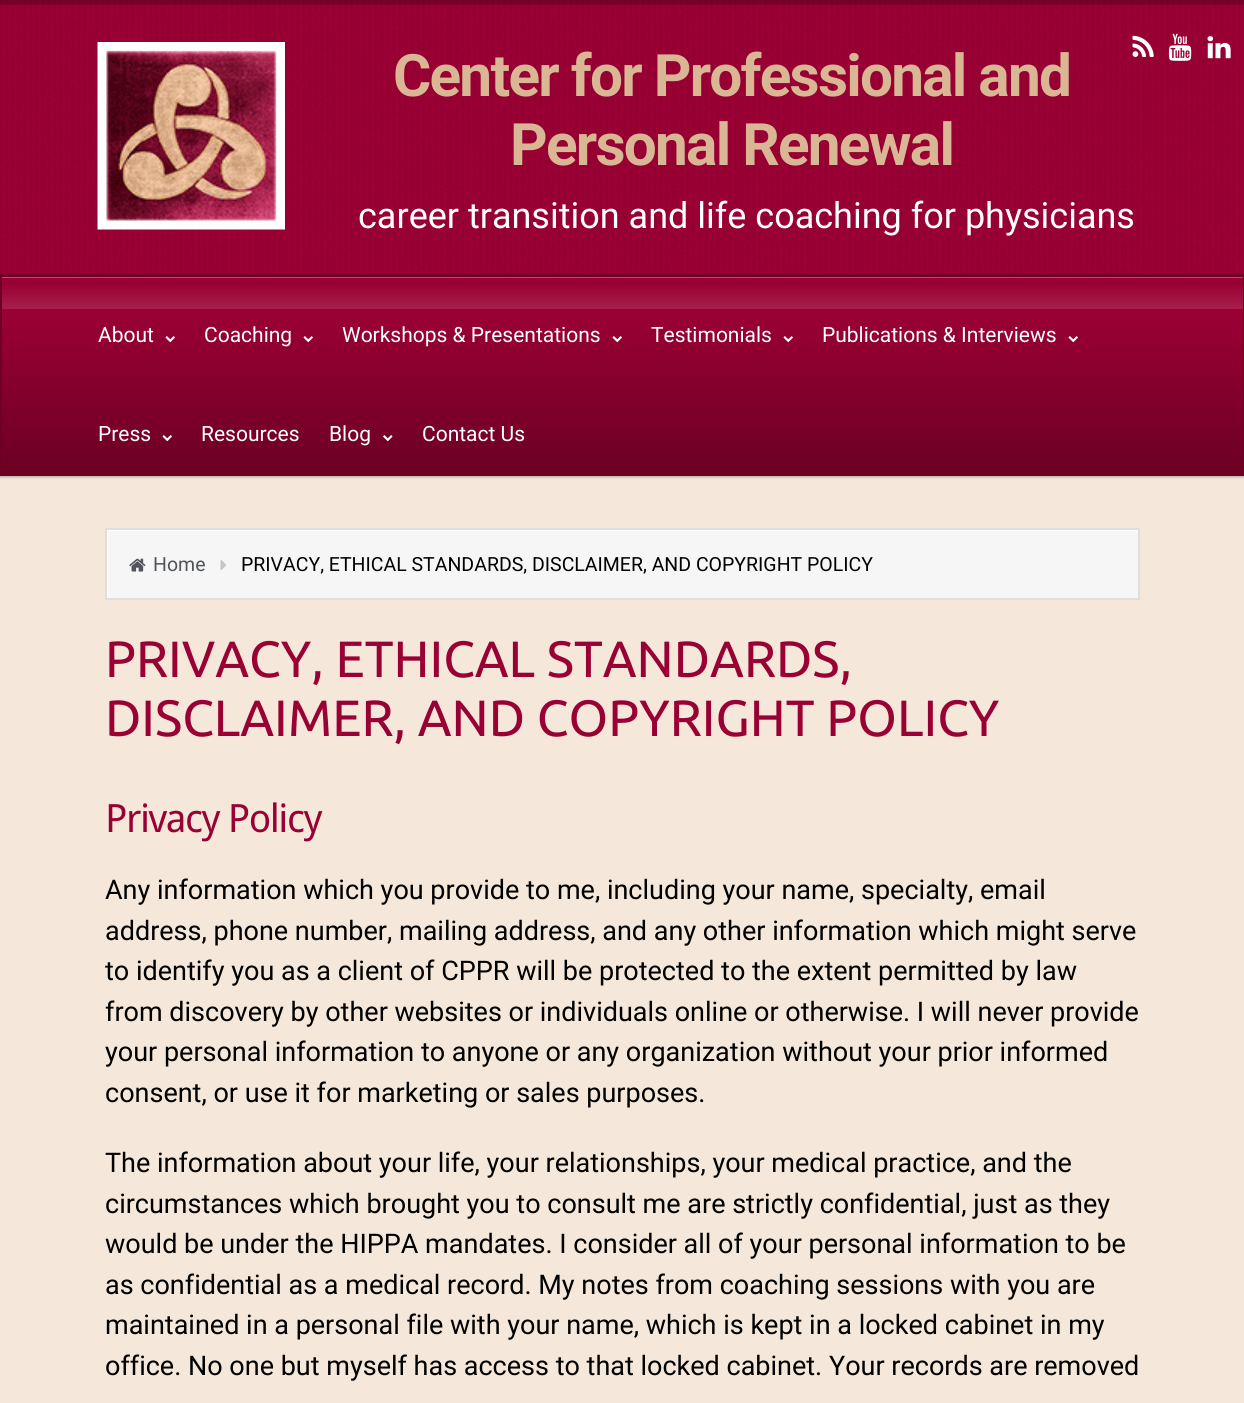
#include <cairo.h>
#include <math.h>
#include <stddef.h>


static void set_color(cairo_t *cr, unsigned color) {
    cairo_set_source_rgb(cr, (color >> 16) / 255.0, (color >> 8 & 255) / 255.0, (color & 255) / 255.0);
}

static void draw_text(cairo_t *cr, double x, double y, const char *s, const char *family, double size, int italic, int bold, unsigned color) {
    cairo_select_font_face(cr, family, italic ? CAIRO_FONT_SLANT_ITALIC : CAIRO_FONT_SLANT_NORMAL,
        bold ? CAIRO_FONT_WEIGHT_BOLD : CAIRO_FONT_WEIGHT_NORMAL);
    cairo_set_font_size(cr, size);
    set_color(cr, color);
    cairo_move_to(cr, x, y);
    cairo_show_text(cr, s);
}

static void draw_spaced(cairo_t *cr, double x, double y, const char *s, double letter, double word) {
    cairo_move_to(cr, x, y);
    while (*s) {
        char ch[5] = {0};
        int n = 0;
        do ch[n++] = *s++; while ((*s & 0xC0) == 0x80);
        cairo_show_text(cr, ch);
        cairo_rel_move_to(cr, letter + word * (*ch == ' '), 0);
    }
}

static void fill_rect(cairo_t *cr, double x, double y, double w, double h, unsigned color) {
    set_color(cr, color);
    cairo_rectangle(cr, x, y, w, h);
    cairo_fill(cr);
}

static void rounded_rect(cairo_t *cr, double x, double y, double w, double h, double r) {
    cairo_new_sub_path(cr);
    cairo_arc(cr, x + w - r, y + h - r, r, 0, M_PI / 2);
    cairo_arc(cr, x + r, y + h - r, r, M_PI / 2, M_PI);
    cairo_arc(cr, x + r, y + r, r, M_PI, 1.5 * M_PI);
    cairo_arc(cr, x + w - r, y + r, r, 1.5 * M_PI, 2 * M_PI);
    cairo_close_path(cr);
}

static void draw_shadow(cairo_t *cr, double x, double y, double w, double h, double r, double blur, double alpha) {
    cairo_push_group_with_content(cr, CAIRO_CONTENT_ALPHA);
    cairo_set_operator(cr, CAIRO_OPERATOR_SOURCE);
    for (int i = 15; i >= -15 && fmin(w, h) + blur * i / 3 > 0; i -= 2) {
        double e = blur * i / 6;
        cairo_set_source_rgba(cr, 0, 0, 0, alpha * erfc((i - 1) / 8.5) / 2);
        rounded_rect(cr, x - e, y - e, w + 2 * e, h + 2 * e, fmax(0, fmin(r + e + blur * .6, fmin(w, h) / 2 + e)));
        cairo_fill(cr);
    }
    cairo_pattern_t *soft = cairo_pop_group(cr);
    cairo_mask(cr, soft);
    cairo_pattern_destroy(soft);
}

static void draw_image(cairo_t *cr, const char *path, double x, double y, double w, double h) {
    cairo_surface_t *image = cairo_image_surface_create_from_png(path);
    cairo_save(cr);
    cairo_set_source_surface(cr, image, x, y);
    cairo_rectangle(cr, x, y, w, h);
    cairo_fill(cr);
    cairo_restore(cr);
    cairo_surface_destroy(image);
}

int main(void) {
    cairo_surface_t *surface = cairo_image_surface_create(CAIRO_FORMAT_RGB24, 1244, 1403);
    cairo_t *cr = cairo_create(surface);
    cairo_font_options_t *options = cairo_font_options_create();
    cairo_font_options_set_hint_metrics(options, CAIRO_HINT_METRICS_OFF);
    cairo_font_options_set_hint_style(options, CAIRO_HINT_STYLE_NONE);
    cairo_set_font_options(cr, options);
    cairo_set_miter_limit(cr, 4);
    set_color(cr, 0x990033);
    cairo_paint(cr);
    draw_image(cr, "assets/img1.png", 0, 0, 1241, 274);
    cairo_set_source_rgba(cr, 0, 0, 0, 0.2);
    cairo_rectangle(cr, 0, 0, 1244, 5);
    cairo_fill(cr);
    draw_image(cr, "assets/img2.png", 97, 42, 188, 188);
    cairo_select_font_face(cr, "Roboto", CAIRO_FONT_SLANT_NORMAL, CAIRO_FONT_WEIGHT_BOLD);
    cairo_set_font_size(cr, 58.5);
    set_color(cr, 0xD9B795);
    draw_spaced(cr, 393, 96, "Center for Professional and", -1.75, 0);
    draw_spaced(cr, 510, 165, "Personal Renewal", -1.75, 0);
    draw_text(cr, 358, 228, "career transition and life coaching for physicians", "Roboto", 36, 0, 0, 0xFFFFFF);
    draw_image(cr, "assets/img3.png", 1132, 35, 22, 22);
    draw_image(cr, "assets/img4.png", 1168, 33, 24, 28);
    draw_image(cr, "assets/img5.png", 1207, 36, 24, 23);
    fill_rect(cr, 0, 476, 1244, 927, 0xF5E8DB);
    set_color(cr, 0x000000);
    draw_shadow(cr, 0, 276, 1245, 201, 0, 1.5, 0.29);
    draw_image(cr, "assets/img6.png", 0, 274, 1244, 200);
    fill_rect(cr, 2, 277, 1242, 1, 0xB84D70);
    cairo_rectangle(cr, 1, 276, 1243, 199);
    set_color(cr, 0x6B0024);
    cairo_stroke(cr);
    draw_text(cr, 98, 342, "About", "Roboto", 21, 0, 0, 0xFFFFFF);
    draw_image(cr, "assets/img7.png", 165, 336, 10, 7);
    draw_text(cr, 204, 342, "Coaching", "Roboto", 21, 0, 0, 0xFFFFFF);
    draw_image(cr, "assets/img8.png", 303, 336, 10, 7);
    draw_text(cr, 342, 342, "Workshops & Presentations", "Roboto", 21, 0, 0, 0xFFFFFF);
    draw_image(cr, "assets/img9.png", 612, 336, 10, 7);
    draw_text(cr, 651, 342, "Testimonials", "Roboto", 21, 0, 0, 0xFFFFFF);
    draw_image(cr, "assets/img8.png", 783, 336, 10, 7);
    draw_text(cr, 822, 342, "Publications & Interviews", "Roboto", 21, 0, 0, 0xFFFFFF);
    draw_image(cr, "assets/img9.png", 1068, 336, 10, 7);
    draw_text(cr, 98, 441, "Press", "Roboto", 21, 0, 0, 0xFFFFFF);
    draw_image(cr, "assets/img10.png", 162, 435, 10, 7);
    draw_text(cr, 201, 441, "Resources", "Roboto", 21, 0, 0, 0xFFFFFF);
    draw_text(cr, 329, 441, "Blog", "Roboto", 21, 0, 0, 0xFFFFFF);
    draw_image(cr, "assets/img11.png", 383, 435, 10, 7);
    draw_text(cr, 422, 441, "Contact Us", "Roboto", 21, 0, 0, 0xFFFFFF);
    fill_rect(cr, 108, 531, 1030, 67, 0xF6F6F6);
    cairo_save(cr);
    cairo_rectangle(cr, 107, 530, 1032, 69);
    cairo_clip(cr);
    set_color(cr, 0xFEFEFE);
    cairo_set_fill_rule(cr, CAIRO_FILL_RULE_EVEN_ODD);
    cairo_new_path(cr);
    cairo_move_to(cr, -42, 381);
    cairo_line_to(cr, 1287, 381);
    cairo_line_to(cr, 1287, 747);
    cairo_line_to(cr, -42, 747);
    cairo_close_path(cr);
    cairo_move_to(cr, 108, 531);
    cairo_line_to(cr, 1140, 531);
    cairo_line_to(cr, 1140, 600);
    cairo_line_to(cr, 108, 600);
    cairo_close_path(cr);
    cairo_fill(cr);
    cairo_restore(cr);
    cairo_rectangle(cr, 106, 529, 1033, 70);
    set_color(cr, 0xE0DDDD);
    cairo_stroke(cr);
    draw_image(cr, "assets/img12.png", 129, 558, 17, 14);
    draw_text(cr, 153, 571, "Home", "Roboto", 19.5, 0, 0, 0x51545C);
    draw_image(cr, "assets/img13.png", 220, 560, 7, 10);
    draw_text(cr, 241, 571, "PRIVACY, ETHICAL STANDARDS, DISCLAIMER, AND COPYRIGHT POLICY", "Roboto", 19.5, 0, 0, 0x000000);
    draw_text(cr, 105, 677, "PRIVACY, ETHICAL STANDARDS,", "Ubuntu", 51, 0, 0, 0x990033);
    draw_text(cr, 105, 736, "DISCLAIMER, AND COPYRIGHT POLICY", "Ubuntu", 51, 0, 0, 0x990033);
    cairo_select_font_face(cr, "Droid Sans", CAIRO_FONT_SLANT_NORMAL, CAIRO_FONT_WEIGHT_NORMAL);
    cairo_set_font_size(cr, 39);
    draw_spaced(cr, 105, 832, "Privacy Policy", -1.5, 0);
    draw_text(cr, 105, 899, "Any information which you provide to me, including your name, specialty, email", "Roboto", 27, 0, 0, 0x000000);
    draw_text(cr, 105, 940, "address, phone number, mailing address, and any other information which might serve", "Roboto", 27, 0, 0, 0x000000);
    draw_text(cr, 105, 980, "to identify you as a client of CPPR will be protected to the extent permitted by law", "Roboto", 27, 0, 0, 0x000000);
    draw_text(cr, 105, 1021, "from discovery by other websites or individuals online or otherwise. I will never provide", "Roboto", 27, 0, 0, 0x000000);
    draw_text(cr, 105, 1061, "your personal information to anyone or any organization without your prior informed", "Roboto", 27, 0, 0, 0x000000);
    draw_text(cr, 105, 1102, "consent, or use it for marketing or sales purposes.", "Roboto", 27, 0, 0, 0x000000);
    draw_text(cr, 105, 1172, "The information about your life, your relationships, your medical practice, and the", "Roboto", 27, 0, 0, 0x000000);
    draw_text(cr, 105, 1213, "circumstances which brought you to consult me are strictly confidential, just as they", "Roboto", 27, 0, 0, 0x000000);
    draw_text(cr, 105, 1253, "would be under the HIPPA mandates. I consider all of your personal information to be", "Roboto", 27, 0, 0, 0x000000);
    draw_text(cr, 105, 1294, "as confidential as a medical record. My notes from coaching sessions with you are", "Roboto", 27, 0, 0, 0x000000);
    draw_text(cr, 105, 1334, "maintained in a personal file with your name, which is kept in a locked cabinet in my", "Roboto", 27, 0, 0, 0x000000);
    draw_text(cr, 105, 1375, "office. No one but myself has access to that locked cabinet. Your records are removed", "Roboto", 27, 0, 0, 0x000000);
    cairo_surface_write_to_png(surface, "output.png");
    cairo_font_options_destroy(options);
    cairo_destroy(cr);
    cairo_surface_destroy(surface);
    return 0;
}
